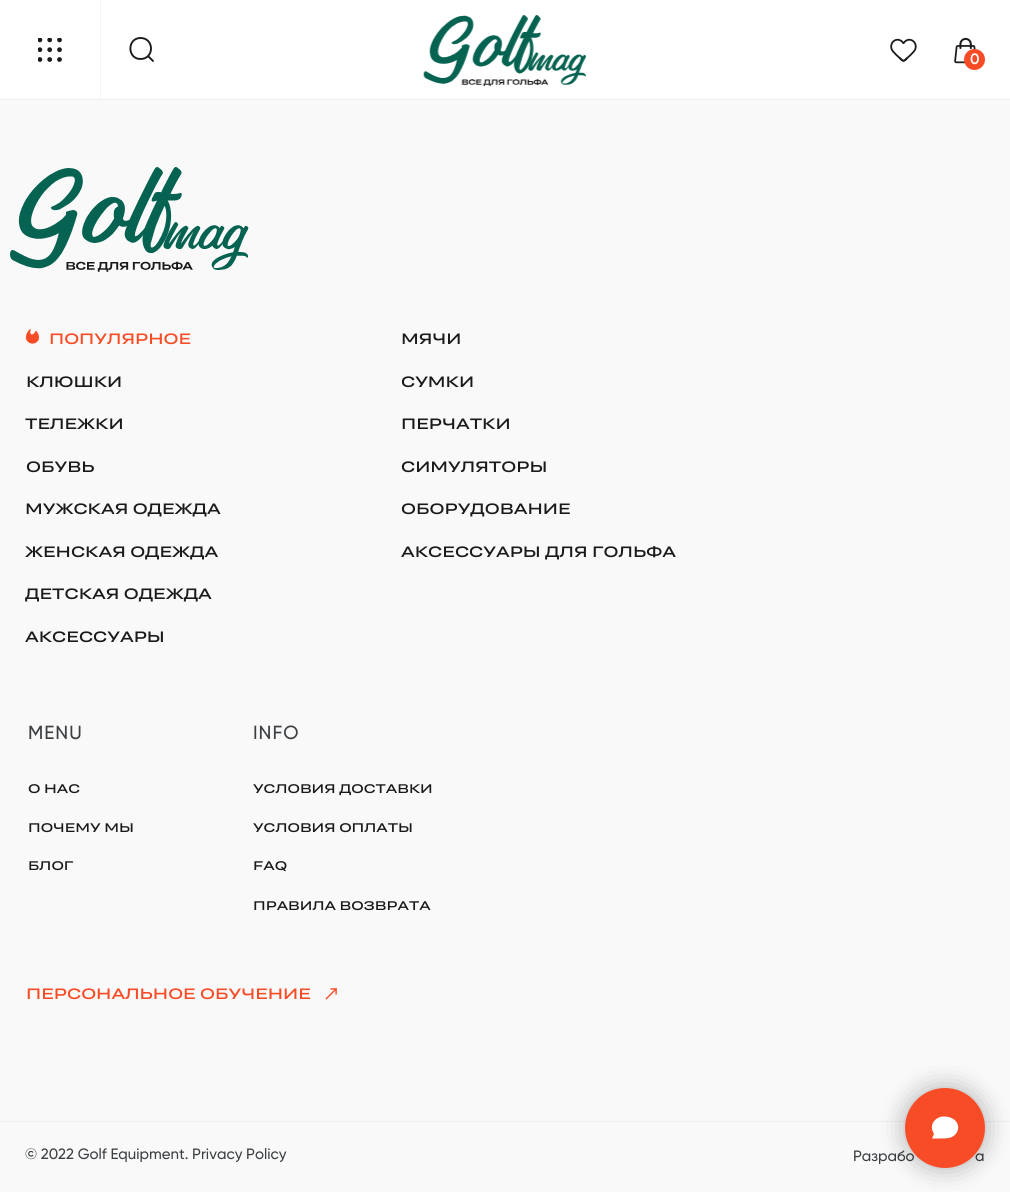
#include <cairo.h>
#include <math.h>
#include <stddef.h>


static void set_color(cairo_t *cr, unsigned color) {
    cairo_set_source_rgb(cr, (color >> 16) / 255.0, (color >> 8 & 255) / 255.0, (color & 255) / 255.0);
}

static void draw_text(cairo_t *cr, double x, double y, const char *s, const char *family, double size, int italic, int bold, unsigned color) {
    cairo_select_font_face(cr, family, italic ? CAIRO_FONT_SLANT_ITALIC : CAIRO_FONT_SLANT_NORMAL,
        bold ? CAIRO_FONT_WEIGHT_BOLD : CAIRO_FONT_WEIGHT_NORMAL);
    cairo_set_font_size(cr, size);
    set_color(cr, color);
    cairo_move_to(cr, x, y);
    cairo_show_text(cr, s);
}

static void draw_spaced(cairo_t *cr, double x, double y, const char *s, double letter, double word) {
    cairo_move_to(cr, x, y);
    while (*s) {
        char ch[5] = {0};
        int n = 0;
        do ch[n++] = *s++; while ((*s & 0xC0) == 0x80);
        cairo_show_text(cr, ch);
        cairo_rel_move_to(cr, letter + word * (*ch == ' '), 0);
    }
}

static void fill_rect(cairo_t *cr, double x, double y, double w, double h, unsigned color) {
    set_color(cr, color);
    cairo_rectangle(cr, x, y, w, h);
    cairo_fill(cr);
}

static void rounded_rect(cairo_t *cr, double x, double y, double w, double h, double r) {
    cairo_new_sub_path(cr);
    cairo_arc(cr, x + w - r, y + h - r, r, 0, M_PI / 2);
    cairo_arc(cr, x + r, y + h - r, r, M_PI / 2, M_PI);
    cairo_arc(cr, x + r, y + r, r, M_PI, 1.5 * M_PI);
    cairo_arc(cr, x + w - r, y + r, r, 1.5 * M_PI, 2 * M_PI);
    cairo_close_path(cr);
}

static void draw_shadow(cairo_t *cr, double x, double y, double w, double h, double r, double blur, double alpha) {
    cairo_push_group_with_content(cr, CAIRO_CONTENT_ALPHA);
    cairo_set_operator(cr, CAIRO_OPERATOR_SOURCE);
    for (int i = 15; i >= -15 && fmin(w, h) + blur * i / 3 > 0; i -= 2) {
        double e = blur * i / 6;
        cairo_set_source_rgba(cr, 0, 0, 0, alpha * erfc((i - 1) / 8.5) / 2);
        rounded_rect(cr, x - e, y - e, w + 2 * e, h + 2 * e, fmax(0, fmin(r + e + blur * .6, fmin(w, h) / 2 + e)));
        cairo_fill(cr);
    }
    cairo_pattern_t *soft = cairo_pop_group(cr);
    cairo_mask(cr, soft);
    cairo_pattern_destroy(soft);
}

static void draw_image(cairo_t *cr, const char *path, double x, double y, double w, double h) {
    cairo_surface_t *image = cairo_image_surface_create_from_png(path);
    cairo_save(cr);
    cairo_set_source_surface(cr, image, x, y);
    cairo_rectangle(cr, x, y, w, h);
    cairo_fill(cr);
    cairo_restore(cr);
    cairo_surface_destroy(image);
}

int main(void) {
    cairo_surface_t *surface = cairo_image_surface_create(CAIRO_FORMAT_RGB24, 1010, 1192);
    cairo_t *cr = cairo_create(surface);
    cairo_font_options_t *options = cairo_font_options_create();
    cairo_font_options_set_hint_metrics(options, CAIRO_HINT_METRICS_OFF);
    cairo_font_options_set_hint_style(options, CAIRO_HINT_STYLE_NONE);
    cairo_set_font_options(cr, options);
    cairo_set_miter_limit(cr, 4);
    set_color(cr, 0xF9F9F9);
    cairo_paint(cr);
    fill_rect(cr, 0, 0, 1010, 99, 0xFFFFFF);
    fill_rect(cr, 100, 0, 1, 100, 0xF4F4F4);
    draw_image(cr, "assets/img1.png", 38, 38, 24, 24);
    cairo_new_path(cr);
    cairo_move_to(cr, 140.5, 59);
    cairo_curve_to(cr, 154.5, 59, 154.5, 38, 140.5, 38);
    cairo_curve_to(cr, 127, 38, 127, 59, 140.5, 59);
    cairo_close_path(cr);
    cairo_move_to(cr, 153, 61);
    cairo_line_to(cr, 149, 57);
    set_color(cr, 0x1A1A1A);
    cairo_set_line_width(cr, 1.9);
    cairo_set_line_cap(cr, CAIRO_LINE_CAP_ROUND);
    cairo_set_line_join(cr, CAIRO_LINE_JOIN_ROUND);
    cairo_stroke(cr);
    draw_image(cr, "assets/img2.png", 423, 15, 164, 71);
    draw_image(cr, "assets/img3.png", 890, 38, 27, 24);
    draw_image(cr, "assets/img4.png", 954, 37, 22, 27);
    set_color(cr, 0xF84C26);
    cairo_arc(cr, 974.5, 59.5, 10.5, 0, 2 * M_PI);
    cairo_fill(cr);
    draw_text(cr, 970, 64, "0", "Gilroy SemiBold", 15, 0, 0, 0xFFFFFF);
    fill_rect(cr, 0, 99, 1010, 1, 0xEFEFEF);
    fill_rect(cr, 100, 99, 1, 1, 0xE4E4E4);
    draw_image(cr, "assets/img5.png", 10, 167, 239, 105);
    draw_image(cr, "assets/img6.png", 26, 329, 13, 15);
    draw_text(cr, 49, 344, "ПОПУЛЯРНОЕ", "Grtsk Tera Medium", 15, 0, 0, 0xF84C26);
    draw_text(cr, 401, 344, "МЯЧИ", "Grtsk Tera Medium", 15, 0, 0, 0x1A1A1A);
    draw_text(cr, 26, 387, "КЛЮШКИ", "Grtsk Tera Medium", 15, 0, 0, 0x1A1A1A);
    draw_text(cr, 401, 387, "СУМКИ", "Grtsk Tera Medium", 15, 0, 0, 0x1A1A1A);
    draw_text(cr, 25, 429, "ТЕЛЕЖКИ", "Grtsk Tera Medium", 15, 0, 0, 0x1A1A1A);
    draw_text(cr, 401, 429, "ПЕРЧАТКИ", "Grtsk Tera Medium", 15, 0, 0, 0x1A1A1A);
    draw_text(cr, 26, 472, "ОБУВЬ", "Grtsk Tera Medium", 15, 0, 0, 0x1A1A1A);
    draw_text(cr, 401, 472, "СИМУЛЯТОРЫ", "Grtsk Tera Medium", 15, 0, 0, 0x1A1A1A);
    draw_text(cr, 25, 514, "МУЖСКАЯ ОДЕЖДА", "Grtsk Tera Medium", 15, 0, 0, 0x1A1A1A);
    draw_text(cr, 401, 514, "ОБОРУДОВАНИЕ", "Grtsk Tera Medium", 15, 0, 0, 0x1A1A1A);
    draw_text(cr, 25, 557, "ЖЕНСКАЯ ОДЕЖДА", "Grtsk Tera Medium", 15, 0, 0, 0x1A1A1A);
    draw_text(cr, 401, 557, "АКСЕССУАРЫ ДЛЯ ГОЛЬФА", "Grtsk Tera Medium", 15, 0, 0, 0x1A1A1A);
    draw_text(cr, 25, 599, "ДЕТСКАЯ ОДЕЖДА", "Grtsk Tera Medium", 15, 0, 0, 0x1A1A1A);
    draw_text(cr, 25, 642, "АКСЕССУАРЫ", "Grtsk Tera Medium", 15, 0, 0, 0x1A1A1A);
    cairo_select_font_face(cr, "Gilroy Medium", CAIRO_FONT_SLANT_NORMAL, CAIRO_FONT_WEIGHT_NORMAL);
    cairo_set_font_size(cr, 19);
    set_color(cr, 0x3C4043);
    draw_spaced(cr, 28, 739, "MENU", 1, 0);
    draw_spaced(cr, 253, 739, "INFO", 1, 0);
    draw_text(cr, 28, 793, "О НАС", "Grtsk Tera Medium", 12.5, 0, 0, 0x1A1A1A);
    draw_text(cr, 253, 793, "УСЛОВИЯ ДОСТАВКИ", "Grtsk Tera Medium", 12.5, 0, 0, 0x1A1A1A);
    draw_text(cr, 28, 832, "ПОЧЕМУ МЫ", "Grtsk Tera Medium", 12.5, 0, 0, 0x1A1A1A);
    draw_text(cr, 253, 832, "УСЛОВИЯ ОПЛАТЫ", "Grtsk Tera Medium", 12.5, 0, 0, 0x1A1A1A);
    draw_text(cr, 28, 870, "БЛОГ", "Grtsk Tera Medium", 12.5, 0, 0, 0x1A1A1A);
    draw_text(cr, 253, 870, "FAQ", "Grtsk Tera Medium", 12.5, 0, 0, 0x1A1A1A);
    draw_text(cr, 253, 910, "ПРАВИЛА ВОЗВРАТА", "Grtsk Tera Medium", 12.5, 0, 0, 0x1A1A1A);
    draw_text(cr, 26, 999, "ПЕРСОНАЛЬНОЕ ОБУЧЕНИЕ", "Grtsk Tera Medium", 15, 0, 0, 0xF84C26);
    draw_image(cr, "assets/img7.png", 325, 988, 12, 12);
    fill_rect(cr, 0, 1121, 1010, 1, 0xEEEDF1);
    draw_text(cr, 25, 1159, "© 2022 Golf Equipment. Privacy Policy", "Gilroy Medium", 15, 0, 0, 0x3C4043);
    draw_text(cr, 853, 1161, "Разрабо", "Gilroy Medium", 15, 0, 0, 0x3C4043);
    draw_text(cr, 975, 1161, "а", "Gilroy Medium", 15, 0, 0, 0x3C4043);
    set_color(cr, 0x000000);
    draw_shadow(cr, 905, 1088, 80, 80, 40, 12.5, 0.3);
    set_color(cr, 0xF84C26);
    cairo_arc(cr, 945, 1128, 38.5, 0, 2 * M_PI);
    cairo_fill_preserve(cr);
    cairo_set_line_width(cr, 3);
    cairo_set_line_cap(cr, CAIRO_LINE_CAP_BUTT);
    cairo_set_line_join(cr, CAIRO_LINE_JOIN_MITER);
    cairo_stroke(cr);
    set_color(cr, 0xFFFFFF);
    cairo_set_fill_rule(cr, CAIRO_FILL_RULE_EVEN_ODD);
    cairo_new_path(cr);
    cairo_move_to(cr, 940, 1117);
    cairo_curve_to(cr, 933, 1119.5, 930, 1126, 933, 1132);
    cairo_line_to(cr, 934, 1134);
    cairo_line_to(cr, 932, 1138.5);
    cairo_line_to(cr, 939.5, 1138.5);
    cairo_curve_to(cr, 948.5, 1138.5, 950.5, 1138, 953.5, 1136);
    cairo_curve_to(cr, 960.5, 1131, 959.5, 1121.5, 951.5, 1118);
    cairo_curve_to(cr, 948.5, 1116.5, 943.5, 1116, 940, 1117);
    cairo_close_path(cr);
    cairo_fill(cr);
    cairo_surface_write_to_png(surface, "output.png");
    cairo_font_options_destroy(options);
    cairo_destroy(cr);
    cairo_surface_destroy(surface);
    return 0;
}
